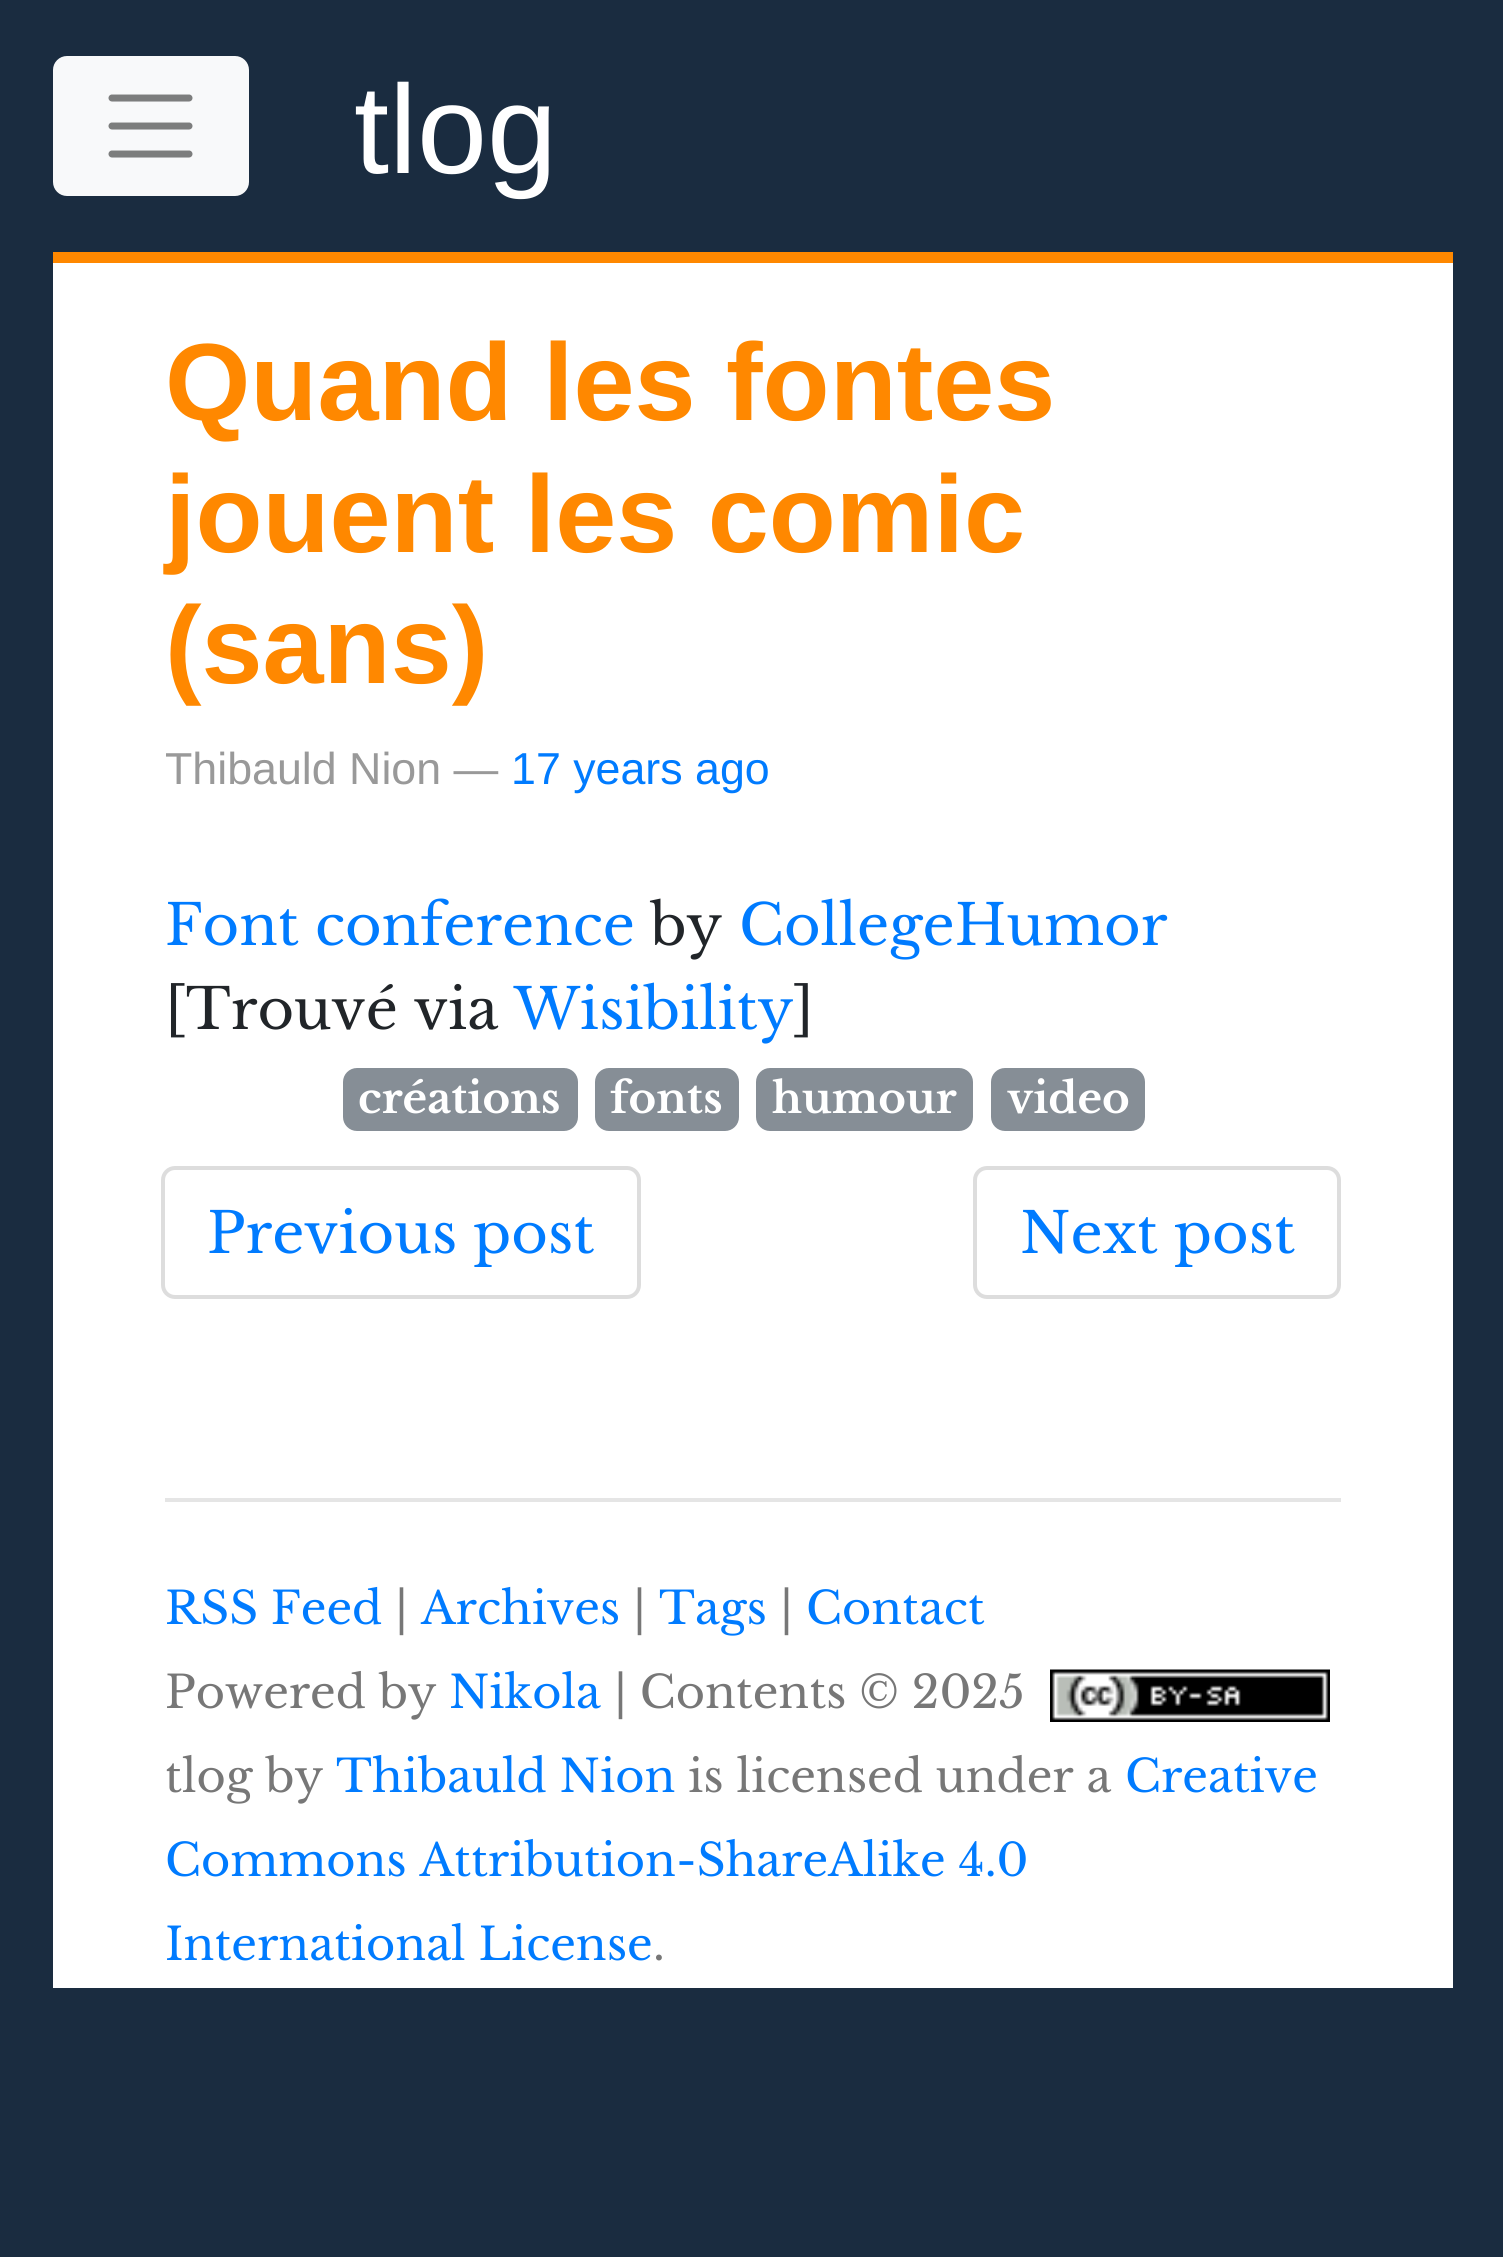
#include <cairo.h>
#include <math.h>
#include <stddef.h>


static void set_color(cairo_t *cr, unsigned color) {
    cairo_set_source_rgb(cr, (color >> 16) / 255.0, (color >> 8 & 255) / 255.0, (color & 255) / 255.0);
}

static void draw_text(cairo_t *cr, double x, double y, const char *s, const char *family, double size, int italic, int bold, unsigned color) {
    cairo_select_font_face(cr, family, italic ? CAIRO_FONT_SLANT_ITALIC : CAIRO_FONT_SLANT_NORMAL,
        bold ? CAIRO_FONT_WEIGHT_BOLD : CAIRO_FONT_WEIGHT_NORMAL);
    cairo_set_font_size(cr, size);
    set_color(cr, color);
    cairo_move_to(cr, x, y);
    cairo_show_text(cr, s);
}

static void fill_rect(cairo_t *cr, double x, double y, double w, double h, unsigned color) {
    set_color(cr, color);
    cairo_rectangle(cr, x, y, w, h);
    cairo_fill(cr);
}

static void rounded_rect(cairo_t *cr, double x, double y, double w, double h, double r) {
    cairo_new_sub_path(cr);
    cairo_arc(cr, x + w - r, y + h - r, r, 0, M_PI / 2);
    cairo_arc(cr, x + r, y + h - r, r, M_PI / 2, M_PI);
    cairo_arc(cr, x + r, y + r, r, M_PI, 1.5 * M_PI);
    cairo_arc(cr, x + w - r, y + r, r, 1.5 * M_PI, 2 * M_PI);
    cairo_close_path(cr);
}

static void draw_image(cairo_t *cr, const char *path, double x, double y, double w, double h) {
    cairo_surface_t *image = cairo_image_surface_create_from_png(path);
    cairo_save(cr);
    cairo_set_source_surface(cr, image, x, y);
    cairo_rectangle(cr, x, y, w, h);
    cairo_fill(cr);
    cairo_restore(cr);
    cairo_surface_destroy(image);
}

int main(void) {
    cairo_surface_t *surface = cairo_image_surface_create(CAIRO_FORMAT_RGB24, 1503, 2257);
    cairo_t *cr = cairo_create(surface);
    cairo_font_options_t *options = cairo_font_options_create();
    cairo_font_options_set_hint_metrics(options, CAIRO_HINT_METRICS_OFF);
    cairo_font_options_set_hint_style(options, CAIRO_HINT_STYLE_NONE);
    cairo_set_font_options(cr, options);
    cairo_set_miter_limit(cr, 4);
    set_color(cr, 0x1A2C40);
    cairo_paint(cr);
    fill_rect(cr, 53, 252, 1400, 11, 0xFF8800);
    set_color(cr, 0xF8F9FA);
    rounded_rect(cr, 53, 56, 196, 140, 14);
    cairo_fill(cr);
    cairo_new_path(cr);
    cairo_move_to(cr, 112, 98);
    cairo_line_to(cr, 189, 98);
    cairo_move_to(cr, 112, 126);
    cairo_line_to(cr, 189, 126);
    cairo_move_to(cr, 112, 154);
    cairo_line_to(cr, 189, 154);
    set_color(cr, 0x7C7D7D);
    cairo_set_line_width(cr, 7);
    cairo_set_line_cap(cr, CAIRO_LINE_CAP_ROUND);
    cairo_stroke(cr);
    draw_text(cr, 354, 173, "tlog", "Liberation Sans", 126, 0, 0, 0xFFFFFF);
    fill_rect(cr, 53, 263, 1400, 1725, 0xFFFFFF);
    draw_text(cr, 165, 420, "Quand les fontes", "Liberation Sans", 109.75, 0, 1, 0xFF8800);
    draw_text(cr, 165, 552, "jouent les comic", "Liberation Sans", 109.75, 0, 1, 0xFF8800);
    draw_text(cr, 165, 683, "(sans)", "Liberation Sans", 109.75, 0, 1, 0xFF8800);
    draw_text(cr, 165, 784, "Thibauld Nion —", "Liberation Sans", 44.75, 0, 0, 0x999999);
    draw_text(cr, 511, 784, "17 years ago", "Liberation Sans", 44.75, 0, 0, 0x007BFF);
    draw_text(cr, 165, 945, "Font conference", "Libre Baskerville", 56, 0, 0, 0x007BFF);
    draw_text(cr, 650, 945, "by", "Libre Baskerville", 56, 0, 0, 0x212529);
    draw_text(cr, 739, 945, "CollegeHumor", "Libre Baskerville", 56, 0, 0, 0x007BFF);
    draw_text(cr, 165, 1029, "[Trouvé via", "Libre Baskerville", 56, 0, 0, 0x212529);
    draw_text(cr, 514, 1029, "Wisibility", "Libre Baskerville", 56, 0, 0, 0x007BFF);
    draw_text(cr, 793, 1029, "]", "Libre Baskerville", 56, 0, 0, 0x212529);
    set_color(cr, 0x868E96);
    rounded_rect(cr, 343, 1068, 235, 63, 14);
    cairo_fill(cr);
    draw_text(cr, 358, 1113, "créations", "Libre Baskerville", 42, 0, 1, 0xFFFFFF);
    set_color(cr, 0x868E96);
    rounded_rect(cr, 595, 1068, 144, 63, 14);
    cairo_fill(cr);
    draw_text(cr, 610, 1113, "fonts", "Libre Baskerville", 42, 0, 1, 0xFFFFFF);
    set_color(cr, 0x868E96);
    rounded_rect(cr, 756, 1068, 217, 63, 14);
    cairo_fill(cr);
    draw_text(cr, 772, 1113, "humour", "Libre Baskerville", 42, 0, 1, 0xFFFFFF);
    set_color(cr, 0x868E96);
    rounded_rect(cr, 991, 1068, 154, 63, 14);
    cairo_fill(cr);
    draw_text(cr, 1007, 1113, "video", "Libre Baskerville", 42, 0, 1, 0xFFFFFF);
    rounded_rect(cr, 163, 1168, 476, 129, 12);
    set_color(cr, 0xDDDDDD);
    cairo_set_line_width(cr, 4);
    cairo_set_line_cap(cr, CAIRO_LINE_CAP_BUTT);
    cairo_stroke(cr);
    draw_text(cr, 207, 1253, "Previous post", "Libre Baskerville", 56, 0, 0, 0x007BFF);
    rounded_rect(cr, 975, 1168, 364, 129, 12);
    set_color(cr, 0xDDDDDD);
    cairo_stroke(cr);
    draw_text(cr, 1020, 1253, "Next post", "Libre Baskerville", 56, 0, 0, 0x007BFF);
    fill_rect(cr, 165, 1498, 1176, 4, 0xE5E5E5);
    draw_text(cr, 165, 1624, "RSS Feed", "Libre Baskerville", 44.75, 0, 0, 0x007BFF);
    draw_text(cr, 395, 1624, "|", "Libre Baskerville", 44.75, 0, 0, 0x777777);
    draw_text(cr, 421, 1624, "Archives", "Libre Baskerville", 44.75, 0, 0, 0x007BFF);
    draw_text(cr, 633, 1624, "|", "Libre Baskerville", 44.75, 0, 0, 0x777777);
    draw_text(cr, 659, 1624, "Tags", "Libre Baskerville", 44.75, 0, 0, 0x007BFF);
    draw_text(cr, 780, 1624, "|", "Libre Baskerville", 44.75, 0, 0, 0x777777);
    draw_text(cr, 806, 1624, "Contact", "Libre Baskerville", 44.75, 0, 0, 0x007BFF);
    draw_text(cr, 165, 1708, "Powered by", "Libre Baskerville", 44.75, 0, 0, 0x777777);
    draw_text(cr, 449, 1708, "Nikola", "Libre Baskerville", 44.75, 0, 0, 0x007BFF);
    draw_text(cr, 614, 1708, "| Contents © 2025", "Libre Baskerville", 44.75, 0, 0, 0x777777);
    draw_image(cr, "assets/img1.png", 1050, 1669, 280, 53);
    draw_text(cr, 165, 1792, "tlog by", "Libre Baskerville", 44.75, 0, 0, 0x777777);
    draw_text(cr, 336, 1792, "Thibauld Nion", "Libre Baskerville", 44.75, 0, 0, 0x007BFF);
    draw_text(cr, 688, 1792, "is licensed under a", "Libre Baskerville", 44.75, 0, 0, 0x777777);
    draw_text(cr, 1125, 1792, "Creative", "Libre Baskerville", 44.75, 0, 0, 0x007BFF);
    draw_text(cr, 165, 1876, "Commons Attribution-ShareAlike 4.0", "Libre Baskerville", 44.75, 0, 0, 0x007BFF);
    draw_text(cr, 165, 1960, "International License", "Libre Baskerville", 44.75, 0, 0, 0x007BFF);
    draw_text(cr, 653, 1960, ".", "Libre Baskerville", 44.75, 0, 0, 0x777777);
    cairo_surface_write_to_png(surface, "output.png");
    cairo_font_options_destroy(options);
    cairo_destroy(cr);
    cairo_surface_destroy(surface);
    return 0;
}
